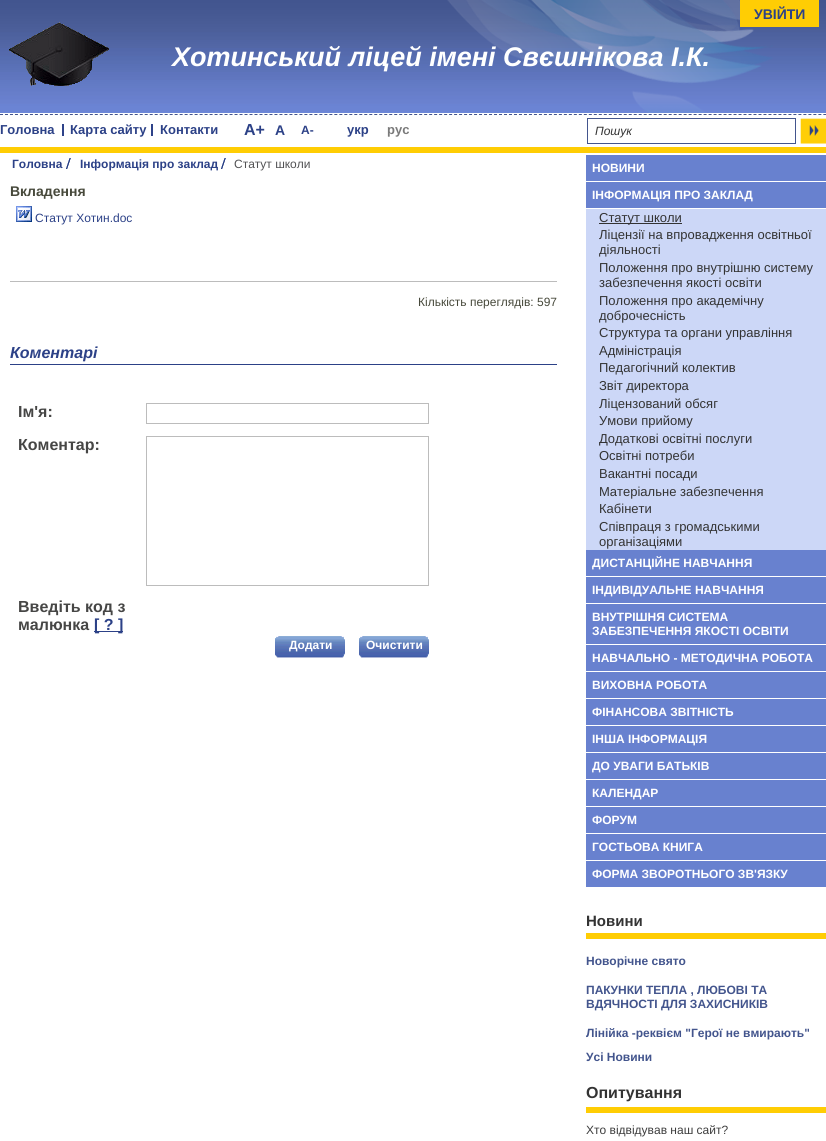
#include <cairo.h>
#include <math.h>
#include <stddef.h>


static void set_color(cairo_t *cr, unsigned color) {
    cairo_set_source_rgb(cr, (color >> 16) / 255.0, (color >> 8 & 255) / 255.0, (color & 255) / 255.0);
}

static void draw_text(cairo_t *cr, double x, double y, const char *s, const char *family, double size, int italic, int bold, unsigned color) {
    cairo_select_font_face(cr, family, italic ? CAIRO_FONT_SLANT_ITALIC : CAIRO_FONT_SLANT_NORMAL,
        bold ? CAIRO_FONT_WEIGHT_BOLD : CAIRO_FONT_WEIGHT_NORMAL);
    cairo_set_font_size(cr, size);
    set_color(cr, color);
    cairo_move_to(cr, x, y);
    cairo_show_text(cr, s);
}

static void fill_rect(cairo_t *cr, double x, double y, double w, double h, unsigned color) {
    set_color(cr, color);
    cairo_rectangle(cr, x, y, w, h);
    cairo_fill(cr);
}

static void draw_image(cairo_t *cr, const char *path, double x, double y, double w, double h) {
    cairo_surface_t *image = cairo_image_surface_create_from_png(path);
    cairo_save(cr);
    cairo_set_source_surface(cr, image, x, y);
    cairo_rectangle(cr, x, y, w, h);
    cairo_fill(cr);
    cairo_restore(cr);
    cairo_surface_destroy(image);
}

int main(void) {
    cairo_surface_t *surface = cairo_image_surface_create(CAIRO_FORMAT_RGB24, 826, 1141);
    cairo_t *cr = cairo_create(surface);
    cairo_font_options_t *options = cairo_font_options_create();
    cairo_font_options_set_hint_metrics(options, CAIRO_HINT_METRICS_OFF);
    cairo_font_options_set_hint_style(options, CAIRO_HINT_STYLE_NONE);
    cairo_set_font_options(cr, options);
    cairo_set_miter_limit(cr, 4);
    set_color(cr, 0xFFFFFF);
    cairo_paint(cr);
    draw_image(cr, "assets/img1.png", 0, 0, 826, 113);
    draw_image(cr, "assets/img2.png", 447, 0, 326, 113);
    fill_rect(cr, 740, 0, 79, 27, 0xFFCD04);
    draw_text(cr, 754, 19, "УВІЙТИ", "Liberation Sans", 14, 0, 1, 0x2C4187);
    draw_image(cr, "assets/img3.png", 9, 22, 100, 64);
    draw_text(cr, 172, 66, "Хотинський ліцей імені Свєшнікова І.К.", "Liberation Sans", 27, 1, 1, 0xFFFFFF);
    cairo_new_path(cr);
    cairo_move_to(cr, 0, 114.5);
    cairo_line_to(cr, 826, 114.5);
    set_color(cr, 0x43558D);
    cairo_set_line_width(cr, 1);
    cairo_set_dash(cr, (double[]){3, 1.99}, 2, 0);
    cairo_stroke(cr);
    fill_rect(cr, 0, 147, 826, 6, 0xFFCD04);
    fill_rect(cr, 62, 124, 2, 12, 0x2E4289);
    draw_text(cr, 0, 134, "Головна", "Liberation Sans", 13, 0, 1, 0x2C4187);
    fill_rect(cr, 151, 124, 2, 12, 0x2E4289);
    draw_text(cr, 70, 134, "Карта сайту", "Liberation Sans", 13, 0, 1, 0x2C4187);
    draw_text(cr, 160, 134, "Контакти", "Liberation Sans", 13, 0, 1, 0x2C4187);
    draw_text(cr, 244, 135, "A+", "Liberation Sans", 16, 0, 1, 0x2C4187);
    draw_text(cr, 275, 135, "А", "Liberation Sans", 14, 0, 1, 0x2C4187);
    draw_text(cr, 301, 134, "A-", "Liberation Sans", 12, 0, 1, 0x2C4187);
    draw_text(cr, 347, 134, "укр", "Liberation Sans", 13, 0, 1, 0x2C4187);
    draw_text(cr, 387, 134, "рус", "Liberation Sans", 13, 0, 1, 0x7A7A7A);
    cairo_rectangle(cr, 587.5, 118.5, 208, 25);
    set_color(cr, 0x43558D);
    cairo_set_dash(cr, NULL, 0, 0);
    cairo_stroke(cr);
    draw_text(cr, 595, 135, "Пошук", "Liberation Sans", 12, 1, 0, 0x333333);
    draw_image(cr, "assets/img4.png", 800, 118, 26, 26);
    draw_image(cr, "assets/img5.png", 66, 158, 5, 11);
    draw_text(cr, 12, 168, "Головна", "Liberation Sans", 12, 0, 1, 0x2C4187);
    draw_image(cr, "assets/img5.png", 221, 158, 5, 11);
    draw_text(cr, 80, 168, "Інформація про заклад", "Liberation Sans", 12, 0, 1, 0x2C4187);
    draw_text(cr, 234, 168, "Статут школи", "Liberation Sans", 12, 0, 0, 0x525254);
    draw_text(cr, 10, 196, "Вкладення", "Liberation Sans", 14, 0, 1, 0x47493B);
    draw_image(cr, "assets/img6.png", 16, 206, 16, 16);
    draw_text(cr, 35, 222, "Статут Хотин.doc", "Liberation Sans", 12, 0, 0, 0x2C4187);
    fill_rect(cr, 10, 281, 547, 1, 0xBCBCBC);
    draw_text(cr, 418, 306, "Кiлькiсть переглядiв: 597", "Liberation Sans", 12, 0, 0, 0x47493B);
    fill_rect(cr, 10, 364, 547, 1, 0x2C4187);
    draw_text(cr, 10, 358, "Коментарi", "Liberation Sans", 16, 1, 1, 0x2C4187);
    draw_text(cr, 18, 417, "Ім'я:", "Liberation Sans", 16, 0, 1, 0x464645);
    cairo_rectangle(cr, 146.5, 403.5, 282, 20);
    set_color(cr, 0xBCBCBC);
    cairo_stroke(cr);
    draw_text(cr, 18, 450, "Коментар:", "Liberation Sans", 16, 0, 1, 0x464645);
    cairo_rectangle(cr, 146.5, 436.5, 282, 149);
    set_color(cr, 0xBCBCBC);
    cairo_stroke(cr);
    draw_text(cr, 18, 612, "Введіть код з", "Liberation Sans", 16, 0, 1, 0x464645);
    draw_text(cr, 18, 630, "малюнка", "Liberation Sans", 16, 0, 1, 0x464645);
    fill_rect(cr, 94, 631, 29, 1, 0x2C4187);
    draw_text(cr, 94, 630, "[ ? ]", "Liberation Sans", 16, 0, 1, 0x2C4187);
    draw_image(cr, "assets/img7.png", 275, 636, 70, 22);
    draw_text(cr, 289, 649, "Додати", "Liberation Sans", 12, 0, 1, 0xFFFFFF);
    draw_image(cr, "assets/img7.png", 359, 636, 70, 22);
    draw_text(cr, 366, 649, "Очистити", "Liberation Sans", 12, 0, 1, 0xFFFFFF);
    fill_rect(cr, 586, 155, 240, 26, 0x6881CF);
    draw_text(cr, 592, 172, "НОВИНИ", "Liberation Sans", 12, 0, 1, 0xFFFFFF);
    fill_rect(cr, 586, 182, 240, 26, 0x6881CF);
    draw_text(cr, 592, 199, "ІНФОРМАЦІЯ ПРО ЗАКЛАД", "Liberation Sans", 12, 0, 1, 0xFFFFFF);
    fill_rect(cr, 586, 209, 240, 341, 0xCCD7F7);
    fill_rect(cr, 599, 223, 83, 1, 0x333333);
    draw_text(cr, 599, 222, "Статут школи", "Liberation Sans", 13, 0, 0, 0x333333);
    draw_text(cr, 599, 239, "Ліцензії на впровадження освітньої", "Liberation Sans", 13, 0, 0, 0x333333);
    draw_text(cr, 599, 254, "діяльності", "Liberation Sans", 13, 0, 0, 0x333333);
    draw_text(cr, 599, 272, "Положення про внутрішню систему", "Liberation Sans", 13, 0, 0, 0x333333);
    draw_text(cr, 599, 287, "забезпечення якості освіти", "Liberation Sans", 13, 0, 0, 0x333333);
    draw_text(cr, 599, 305, "Положення про академічну", "Liberation Sans", 13, 0, 0, 0x333333);
    draw_text(cr, 599, 320, "доброчесність", "Liberation Sans", 13, 0, 0, 0x333333);
    draw_text(cr, 599, 337, "Структура та органи управління", "Liberation Sans", 13, 0, 0, 0x333333);
    draw_text(cr, 599, 355, "Адміністрація", "Liberation Sans", 13, 0, 0, 0x333333);
    draw_text(cr, 599, 372, "Педагогічний колектив", "Liberation Sans", 13, 0, 0, 0x333333);
    draw_text(cr, 599, 390, "Звіт директора", "Liberation Sans", 13, 0, 0, 0x333333);
    draw_text(cr, 599, 408, "Ліцензований обсяг", "Liberation Sans", 13, 0, 0, 0x333333);
    draw_text(cr, 599, 425, "Умови прийому", "Liberation Sans", 13, 0, 0, 0x333333);
    draw_text(cr, 599, 443, "Додаткові освітні послуги", "Liberation Sans", 13, 0, 0, 0x333333);
    draw_text(cr, 599, 460, "Освітні потреби", "Liberation Sans", 13, 0, 0, 0x333333);
    draw_text(cr, 599, 478, "Вакантні посади", "Liberation Sans", 13, 0, 0, 0x333333);
    draw_text(cr, 599, 496, "Матеріальне забезпечення", "Liberation Sans", 13, 0, 0, 0x333333);
    draw_text(cr, 599, 513, "Кабінети", "Liberation Sans", 13, 0, 0, 0x333333);
    draw_text(cr, 599, 531, "Співпраця з громадськими", "Liberation Sans", 13, 0, 0, 0x333333);
    draw_text(cr, 599, 546, "організаціями", "Liberation Sans", 13, 0, 0, 0x333333);
    fill_rect(cr, 586, 550, 240, 26, 0x6881CF);
    draw_text(cr, 592, 567, "ДИСТАНЦІЙНЕ НАВЧАННЯ", "Liberation Sans", 12, 0, 1, 0xFFFFFF);
    fill_rect(cr, 586, 577, 240, 26, 0x6881CF);
    draw_text(cr, 592, 594, "ІНДИВІДУАЛЬНЕ НАВЧАННЯ", "Liberation Sans", 12, 0, 1, 0xFFFFFF);
    fill_rect(cr, 586, 604, 240, 40, 0x6881CF);
    draw_text(cr, 592, 621, "ВНУТРІШНЯ СИСТЕМА", "Liberation Sans", 12, 0, 1, 0xFFFFFF);
    draw_text(cr, 592, 635, "ЗАБЕЗПЕЧЕННЯ ЯКОСТІ ОСВІТИ", "Liberation Sans", 12, 0, 1, 0xFFFFFF);
    fill_rect(cr, 586, 645, 240, 26, 0x6881CF);
    draw_text(cr, 592, 662, "НАВЧАЛЬНО - МЕТОДИЧНА РОБОТА", "Liberation Sans", 12, 0, 1, 0xFFFFFF);
    fill_rect(cr, 586, 672, 240, 26, 0x6881CF);
    draw_text(cr, 592, 689, "ВИХОВНА РОБОТА", "Liberation Sans", 12, 0, 1, 0xFFFFFF);
    fill_rect(cr, 586, 699, 240, 26, 0x6881CF);
    draw_text(cr, 592, 716, "ФІНАНСОВА ЗВІТНІСТЬ", "Liberation Sans", 12, 0, 1, 0xFFFFFF);
    fill_rect(cr, 586, 726, 240, 26, 0x6881CF);
    draw_text(cr, 592, 743, "ІНША ІНФОРМАЦІЯ", "Liberation Sans", 12, 0, 1, 0xFFFFFF);
    fill_rect(cr, 586, 753, 240, 26, 0x6881CF);
    draw_text(cr, 592, 770, "ДО УВАГИ БАТЬКІВ", "Liberation Sans", 12, 0, 1, 0xFFFFFF);
    fill_rect(cr, 586, 780, 240, 26, 0x6881CF);
    draw_text(cr, 592, 797, "КАЛЕНДАР", "Liberation Sans", 12, 0, 1, 0xFFFFFF);
    fill_rect(cr, 586, 807, 240, 26, 0x6881CF);
    draw_text(cr, 592, 824, "ФОРУМ", "Liberation Sans", 12, 0, 1, 0xFFFFFF);
    fill_rect(cr, 586, 834, 240, 26, 0x6881CF);
    draw_text(cr, 592, 851, "ГОСТЬОВА КНИГА", "Liberation Sans", 12, 0, 1, 0xFFFFFF);
    fill_rect(cr, 586, 861, 240, 26, 0x6881CF);
    draw_text(cr, 592, 878, "ФОРМА ЗВОРОТНЬОГО ЗВ'ЯЗКУ", "Liberation Sans", 12, 0, 1, 0xFFFFFF);
    fill_rect(cr, 586, 933, 240, 6, 0xFFCD04);
    draw_text(cr, 586, 926, "Новини", "Liberation Sans", 15, 0, 1, 0x333333);
    draw_text(cr, 586, 965, "Новорічне свято", "Liberation Sans", 12, 0, 1, 0x43558D);
    draw_text(cr, 586, 994, "ПАКУНКИ ТЕПЛА , ЛЮБОВІ ТА", "Liberation Sans", 12, 0, 1, 0x43558D);
    draw_text(cr, 586, 1008, "ВДЯЧНОСТІ ДЛЯ ЗАХИСНИКІВ", "Liberation Sans", 12, 0, 1, 0x43558D);
    draw_text(cr, 586, 1037, "Лінійка -реквієм \"Герої не вмирають\"", "Liberation Sans", 12, 0, 1, 0x43558D);
    draw_text(cr, 586, 1061, "Усі Новини", "Liberation Sans", 12, 0, 1, 0x43558D);
    fill_rect(cr, 586, 1107, 240, 6, 0xFFCD04);
    draw_text(cr, 586, 1098, "Опитування", "Liberation Sans", 16, 0, 1, 0x333333);
    draw_text(cr, 586, 1134, "Хто відвідував наш сайт?", "Liberation Sans", 12, 0, 0, 0x3D3D3D);
    cairo_surface_write_to_png(surface, "output.png");
    cairo_font_options_destroy(options);
    cairo_destroy(cr);
    cairo_surface_destroy(surface);
    return 0;
}
